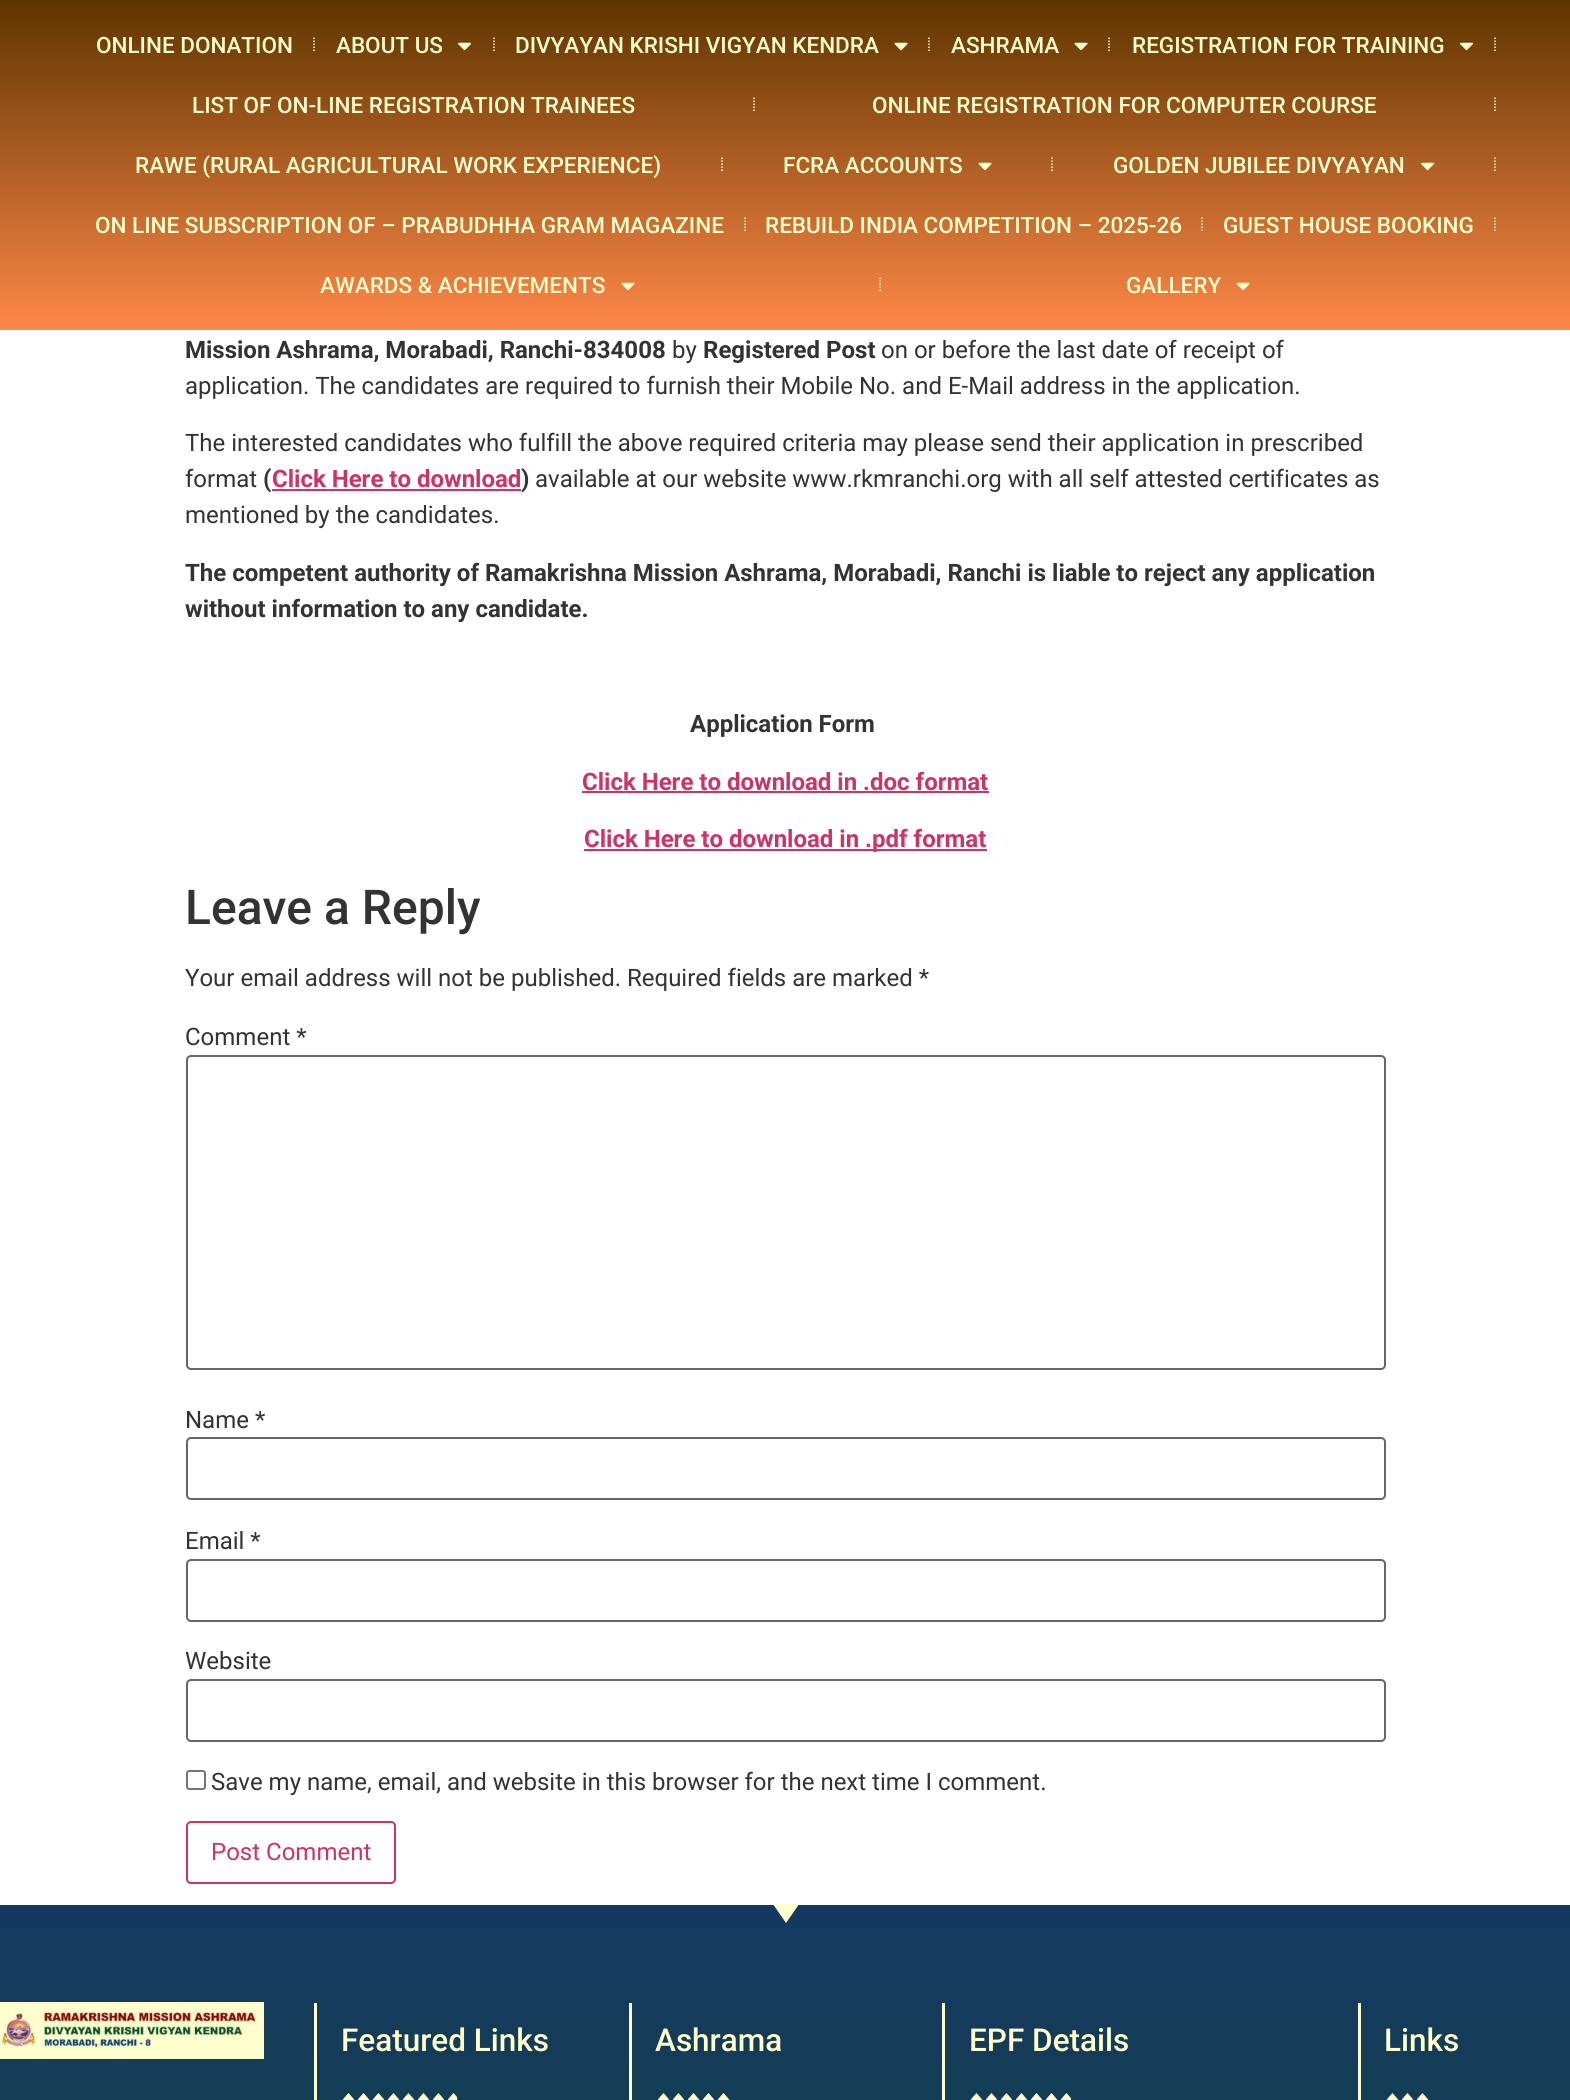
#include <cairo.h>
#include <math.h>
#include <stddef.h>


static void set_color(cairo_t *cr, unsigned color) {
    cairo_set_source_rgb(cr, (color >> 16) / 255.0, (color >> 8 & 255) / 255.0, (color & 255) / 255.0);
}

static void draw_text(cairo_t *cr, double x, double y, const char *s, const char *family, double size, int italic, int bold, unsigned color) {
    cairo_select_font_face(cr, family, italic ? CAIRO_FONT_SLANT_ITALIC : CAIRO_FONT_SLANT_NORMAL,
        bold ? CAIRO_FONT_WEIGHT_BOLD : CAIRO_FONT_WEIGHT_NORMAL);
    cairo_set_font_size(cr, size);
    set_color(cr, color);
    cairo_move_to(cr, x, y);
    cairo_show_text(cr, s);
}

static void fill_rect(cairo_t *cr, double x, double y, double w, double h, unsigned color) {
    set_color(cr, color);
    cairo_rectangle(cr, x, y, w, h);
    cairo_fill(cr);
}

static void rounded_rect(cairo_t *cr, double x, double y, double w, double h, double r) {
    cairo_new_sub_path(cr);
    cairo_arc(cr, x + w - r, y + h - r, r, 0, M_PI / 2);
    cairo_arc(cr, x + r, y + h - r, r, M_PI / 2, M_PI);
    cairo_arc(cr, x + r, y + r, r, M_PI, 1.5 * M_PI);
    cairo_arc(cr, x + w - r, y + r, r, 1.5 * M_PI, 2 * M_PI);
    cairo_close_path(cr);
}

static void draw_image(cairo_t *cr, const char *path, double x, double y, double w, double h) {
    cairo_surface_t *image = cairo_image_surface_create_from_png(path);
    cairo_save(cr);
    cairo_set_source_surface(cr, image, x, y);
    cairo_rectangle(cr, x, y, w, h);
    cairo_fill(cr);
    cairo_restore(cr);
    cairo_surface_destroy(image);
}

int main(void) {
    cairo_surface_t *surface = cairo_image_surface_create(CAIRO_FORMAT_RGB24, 1570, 2100);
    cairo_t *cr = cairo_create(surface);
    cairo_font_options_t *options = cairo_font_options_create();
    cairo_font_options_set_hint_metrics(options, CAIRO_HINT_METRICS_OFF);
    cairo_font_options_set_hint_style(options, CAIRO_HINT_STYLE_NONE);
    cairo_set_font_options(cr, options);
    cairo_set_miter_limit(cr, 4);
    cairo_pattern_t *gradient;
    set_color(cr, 0xFFFFFF);
    cairo_paint(cr);
    gradient = cairo_pattern_create_linear(785, 0, 785, 330);
    cairo_pattern_add_color_stop_rgba(gradient, 0, 0.373, 0.208, 0, 1);
    cairo_pattern_add_color_stop_rgba(gradient, 1, 0.996, 0.533, 0.282, 1);
    cairo_set_source(cr, gradient);
    cairo_pattern_destroy(gradient);
    cairo_rectangle(cr, 0, 0, 1570, 330);
    cairo_fill(cr);
    draw_text(cr, 96, 53, "ONLINE DONATION", "Roboto Medium", 22.5, 0, 0, 0xFFFFCD);
    cairo_new_path(cr);
    cairo_move_to(cr, 314, 37.5);
    cairo_line_to(cr, 314, 52.5);
    cairo_set_line_width(cr, 1.5);
    cairo_set_dash(cr, (double[]){1.5, 1.5}, 2, 0);
    cairo_stroke(cr);
    draw_text(cr, 336, 53, "ABOUT US", "Roboto Medium", 22.5, 0, 0, 0xFFFFCD);
    draw_image(cr, "assets/img1.png", 458, 42, 13, 9);
    cairo_new_path(cr);
    cairo_move_to(cr, 494, 37.5);
    cairo_line_to(cr, 494, 52.5);
    cairo_stroke(cr);
    draw_text(cr, 515, 53, "DIVYAYAN KRISHI VIGYAN KENDRA", "Roboto Medium", 22.5, 0, 0, 0xFFFFCD);
    draw_image(cr, "assets/img2.png", 894, 42, 14, 9);
    cairo_new_path(cr);
    cairo_move_to(cr, 929, 37.5);
    cairo_line_to(cr, 929, 52.5);
    cairo_stroke(cr);
    draw_text(cr, 951, 53, "ASHRAMA", "Roboto Medium", 22.5, 0, 0, 0xFFFFCD);
    draw_image(cr, "assets/img2.png", 1074, 42, 14, 9);
    cairo_new_path(cr);
    cairo_move_to(cr, 1109, 37.5);
    cairo_line_to(cr, 1109, 52.5);
    cairo_stroke(cr);
    draw_text(cr, 1132, 53, "REGISTRATION FOR TRAINING", "Roboto Medium", 22.5, 0, 0, 0xFFFFCD);
    draw_image(cr, "assets/img1.png", 1460, 42, 13, 9);
    cairo_new_path(cr);
    cairo_move_to(cr, 1495, 37.5);
    cairo_line_to(cr, 1495, 52.5);
    cairo_stroke(cr);
    draw_text(cr, 192, 113, "LIST OF ON-LINE REGISTRATION TRAINEES", "Roboto Medium", 22.5, 0, 0, 0xFFFFCD);
    cairo_new_path(cr);
    cairo_move_to(cr, 754, 97.5);
    cairo_line_to(cr, 754, 112.5);
    cairo_stroke(cr);
    draw_text(cr, 872, 113, "ONLINE REGISTRATION FOR COMPUTER COURSE", "Roboto Medium", 22.5, 0, 0, 0xFFFFCD);
    cairo_new_path(cr);
    cairo_move_to(cr, 1495, 97.5);
    cairo_line_to(cr, 1495, 112.5);
    cairo_stroke(cr);
    draw_text(cr, 135, 173, "RAWE (RURAL AGRICULTURAL WORK EXPERIENCE)", "Roboto Medium", 22.5, 0, 0, 0xFFFFCD);
    cairo_new_path(cr);
    cairo_move_to(cr, 722, 157.5);
    cairo_line_to(cr, 722, 172.5);
    cairo_stroke(cr);
    draw_text(cr, 783, 173, "FCRA ACCOUNTS", "Roboto Medium", 22.5, 0, 0, 0xFFFFCD);
    draw_image(cr, "assets/img3.png", 978, 162, 14, 9);
    cairo_new_path(cr);
    cairo_move_to(cr, 1052, 157.5);
    cairo_line_to(cr, 1052, 172.5);
    cairo_stroke(cr);
    draw_text(cr, 1113, 173, "GOLDEN JUBILEE DIVYAYAN", "Roboto Medium", 22.5, 0, 0, 0xFFFFCD);
    draw_image(cr, "assets/img4.png", 1421, 162, 13, 9);
    cairo_new_path(cr);
    cairo_move_to(cr, 1495, 157.5);
    cairo_line_to(cr, 1495, 172.5);
    cairo_stroke(cr);
    draw_text(cr, 95, 233, "ON LINE SUBSCRIPTION OF – PRABUDHHA GRAM MAGAZINE", "Roboto Medium", 22.5, 0, 0, 0xFFFFCD);
    cairo_new_path(cr);
    cairo_move_to(cr, 745, 217.5);
    cairo_line_to(cr, 745, 232.5);
    cairo_stroke(cr);
    draw_text(cr, 765, 233, "REBUILD INDIA COMPETITION – 2025-26", "Roboto Medium", 22.5, 0, 0, 0xFFFFCD);
    cairo_new_path(cr);
    cairo_move_to(cr, 1202, 217.5);
    cairo_line_to(cr, 1202, 232.5);
    cairo_stroke(cr);
    draw_text(cr, 1223, 233, "GUEST HOUSE BOOKING", "Roboto Medium", 22.5, 0, 0, 0xFFFFCD);
    cairo_new_path(cr);
    cairo_move_to(cr, 1495, 217.5);
    cairo_line_to(cr, 1495, 232.5);
    cairo_stroke(cr);
    draw_text(cr, 320, 293, "AWARDS & ACHIEVEMENTS", "Roboto Medium", 22.5, 0, 0, 0xFFFFCD);
    draw_image(cr, "assets/img5.png", 621, 282, 14, 9);
    cairo_new_path(cr);
    cairo_move_to(cr, 880, 277.5);
    cairo_line_to(cr, 880, 292.5);
    cairo_stroke(cr);
    draw_text(cr, 1126, 293, "GALLERY", "Roboto Medium", 22.5, 0, 0, 0xFFFFCD);
    draw_image(cr, "assets/img5.png", 1236, 282, 14, 9);
    draw_text(cr, 185, 358, "Mission Ashrama, Morabadi, Ranchi-834008", "Roboto", 24, 0, 1, 0x333333);
    draw_text(cr, 672, 358, "by", "Roboto", 24, 0, 0, 0x333333);
    draw_text(cr, 703, 358, "Registered Post", "Roboto", 24, 0, 1, 0x333333);
    draw_text(cr, 881, 358, "on or before the last date of receipt of", "Roboto", 24, 0, 0, 0x333333);
    draw_text(cr, 185, 394, "application. The candidates are required to furnish their Mobile No. and E-Mail address in the application.", "Roboto", 24, 0, 0, 0x333333);
    draw_text(cr, 185, 451, "The interested candidates who fulfill the above required criteria may please send their application in prescribed", "Roboto", 24, 0, 0, 0x333333);
    draw_text(cr, 185, 487, "format", "Roboto", 24, 0, 0, 0x333333);
    draw_text(cr, 263, 487, "(", "Roboto", 24, 0, 1, 0x333333);
    fill_rect(cr, 272, 489, 249, 2, 0xCC3366);
    draw_text(cr, 272, 487, "Click Here to download", "Roboto", 24, 0, 1, 0xCC3366);
    draw_text(cr, 521, 487, ")", "Roboto", 24, 0, 1, 0x333333);
    draw_text(cr, 535, 487, "available at our website www.rkmranchi.org with all self attested certificates as", "Roboto", 24, 0, 0, 0x333333);
    draw_text(cr, 185, 523, "mentioned by the candidates.", "Roboto", 24, 0, 0, 0x333333);
    draw_text(cr, 185, 581, "The competent authority of Ramakrishna Mission Ashrama, Morabadi, Ranchi is liable to reject any application", "Roboto", 24, 0, 1, 0x333333);
    draw_text(cr, 185, 617, "without information to any candidate.", "Roboto", 24, 0, 1, 0x333333);
    draw_text(cr, 690, 732, "Application Form", "Roboto", 24, 0, 1, 0x333333);
    draw_text(cr, 582, 790, "Click Here to download in .doc format", "Roboto", 24, 0, 1, 0xCC3366);
    fill_rect(cr, 582, 791, 407, 2, 0xCC3366);
    fill_rect(cr, 584, 849, 403, 2, 0xCC3366);
    draw_text(cr, 584, 847, "Click Here to download in .pdf format", "Roboto", 24, 0, 1, 0xCC3366);
    draw_text(cr, 185, 924, "Leave a Reply", "Roboto Medium", 48, 0, 0, 0x333333);
    draw_text(cr, 185, 986, "Your email address will not be published. Required fields are marked *", "Roboto", 24, 0, 0, 0x333333);
    draw_text(cr, 185, 1045, "Comment *", "Roboto", 24, 0, 0, 0x333333);
    rounded_rect(cr, 187, 1056, 1198, 313, 4);
    set_color(cr, 0x666666);
    cairo_set_line_width(cr, 2);
    cairo_set_dash(cr, NULL, 0, 0);
    cairo_stroke(cr);
    draw_text(cr, 185, 1428, "Name *", "Roboto", 24, 0, 0, 0x333333);
    rounded_rect(cr, 187, 1438, 1198, 61, 4);
    set_color(cr, 0x666666);
    cairo_stroke(cr);
    draw_text(cr, 185, 1549, "Email *", "Roboto", 24, 0, 0, 0x333333);
    rounded_rect(cr, 187, 1560, 1198, 61, 4);
    set_color(cr, 0x666666);
    cairo_stroke(cr);
    draw_text(cr, 185, 1669, "Website", "Roboto", 24, 0, 0, 0x333333);
    rounded_rect(cr, 187, 1680, 1198, 61, 4);
    set_color(cr, 0x666666);
    cairo_stroke(cr);
    rounded_rect(cr, 187, 1771, 18, 18, 2);
    set_color(cr, 0x767676);
    cairo_stroke(cr);
    draw_text(cr, 211, 1790, "Save my name, email, and website in this browser for the next time I comment.", "Roboto", 24, 0, 0, 0x333333);
    rounded_rect(cr, 187, 1822, 208, 61, 4);
    set_color(cr, 0xCC3366);
    cairo_stroke(cr);
    draw_text(cr, 211, 1860, "Post Comment", "Roboto", 24, 0, 0, 0xCC3366);
    gradient = cairo_pattern_create_linear(785, 1905, 785, 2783);
    cairo_pattern_add_color_stop_rgba(gradient, 0, 0.078, 0.224, 0.38, 1);
    cairo_pattern_add_color_stop_rgba(gradient, 1, 0.071, 0.298, 0.169, 1);
    cairo_set_source(cr, gradient);
    cairo_pattern_destroy(gradient);
    cairo_rectangle(cr, 0, 1905, 1570, 195);
    cairo_fill(cr);
    cairo_save(cr);
    cairo_rectangle(cr, 314, 1904, 943, 19);
    cairo_clip(cr);
    set_color(cr, 0xFFFFCD);
    cairo_new_path(cr);
    cairo_move_to(cr, 786, 1923);
    cairo_line_to(cr, 772.5, 1903.5);
    cairo_line_to(cr, 799.5, 1903.5);
    cairo_close_path(cr);
    cairo_fill(cr);
    cairo_restore(cr);
    draw_image(cr, "assets/img6.png", 0, 2002, 264, 57);
    fill_rect(cr, 314, 2003, 3, 97, 0xFFFFCD);
    draw_text(cr, 341, 2051, "Featured Links", "Roboto Medium", 31.5, 0, 0, 0xFFFFCD);
    draw_image(cr, "assets/img7.png", 342, 2093, 116, 7);
    fill_rect(cr, 629, 2003, 3, 97, 0xFFFFCD);
    draw_text(cr, 655, 2051, "Ashrama", "Roboto Medium", 31.5, 0, 0, 0xFFFFCD);
    draw_image(cr, "assets/img8.png", 657, 2093, 72, 7);
    fill_rect(cr, 942, 2003, 3, 97, 0xFFFFCD);
    draw_text(cr, 969, 2051, "EPF Details", "Roboto Medium", 31.5, 0, 0, 0xFFFFCD);
    draw_image(cr, "assets/img9.png", 970, 2093, 101, 7);
    fill_rect(cr, 1358, 2003, 3, 97, 0xFFFFCD);
    draw_text(cr, 1384, 2051, "Links", "Roboto Medium", 31.5, 0, 0, 0xFFFFCD);
    draw_image(cr, "assets/img10.png", 1386, 2093, 42, 7);
    cairo_surface_write_to_png(surface, "output.png");
    cairo_font_options_destroy(options);
    cairo_destroy(cr);
    cairo_surface_destroy(surface);
    return 0;
}
